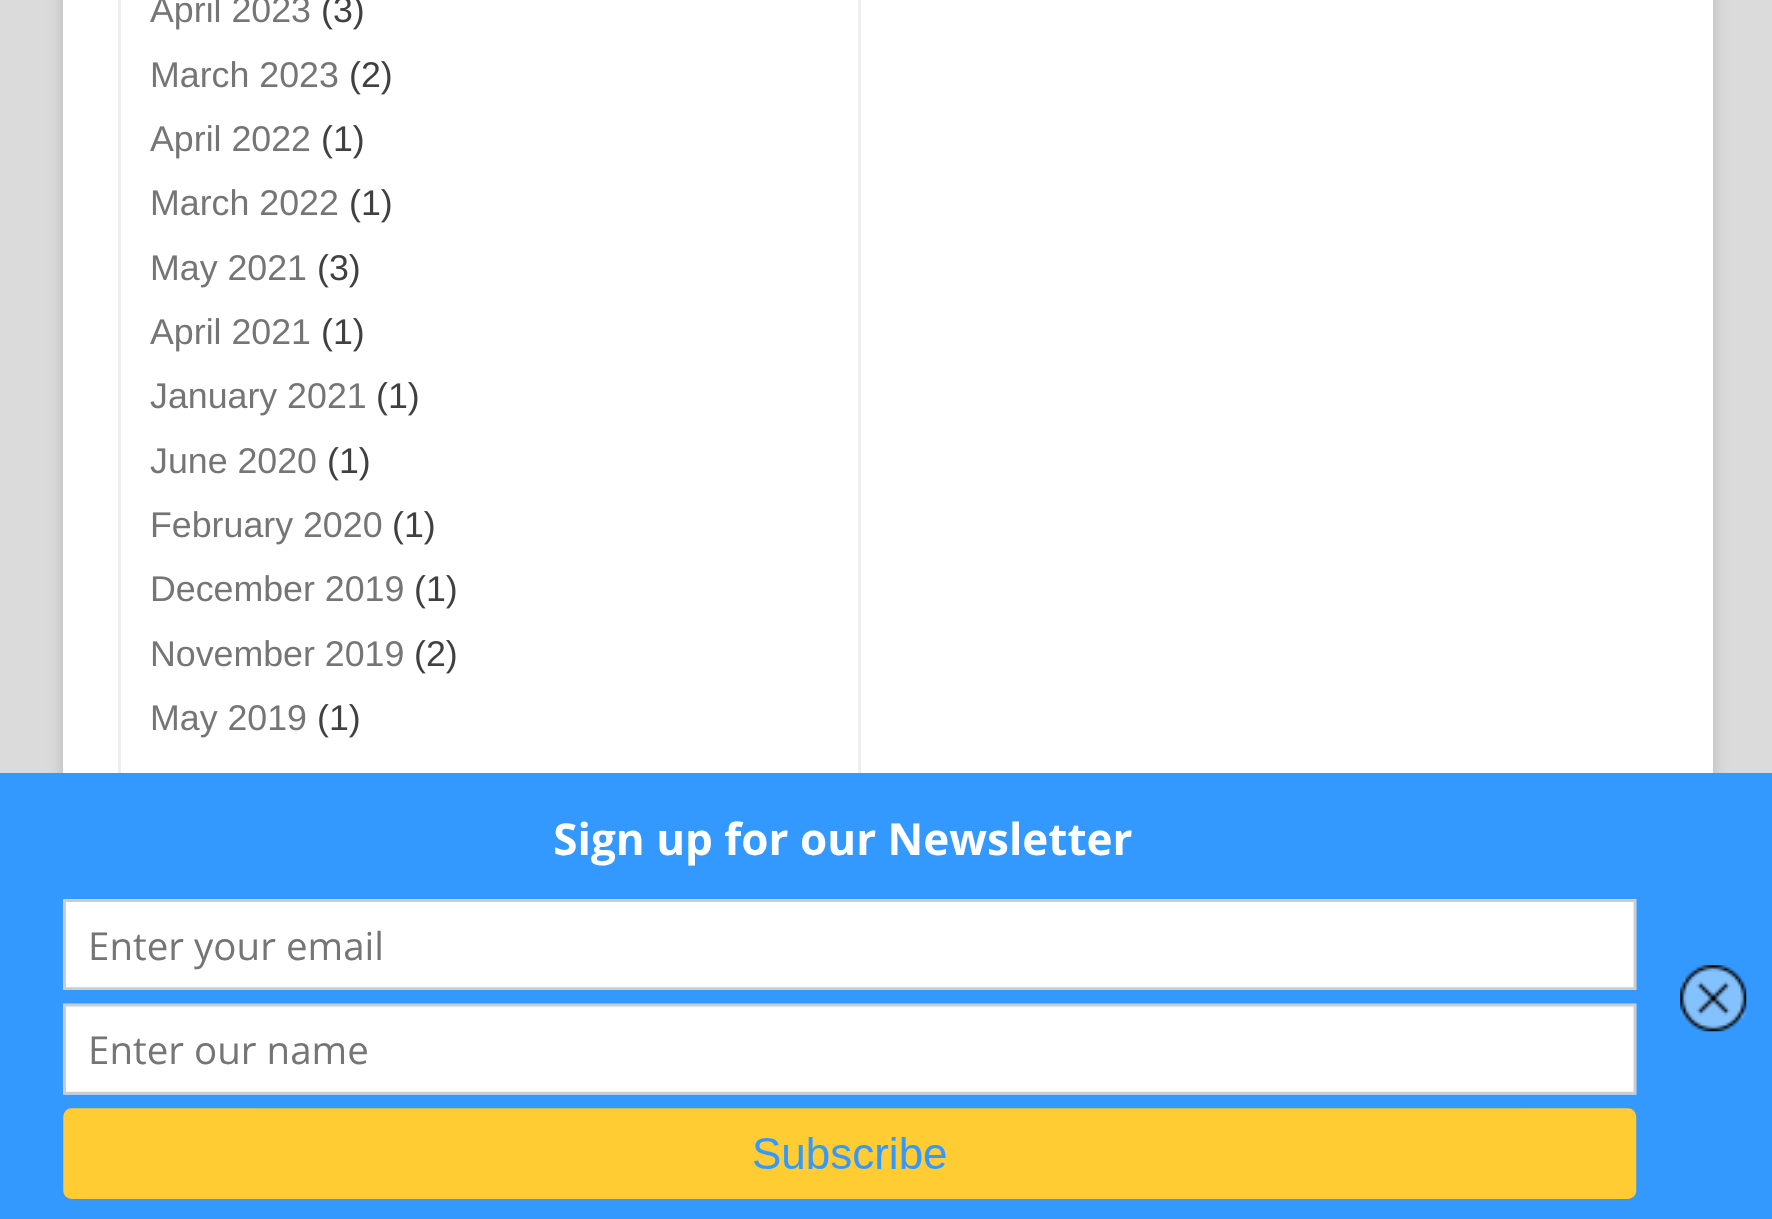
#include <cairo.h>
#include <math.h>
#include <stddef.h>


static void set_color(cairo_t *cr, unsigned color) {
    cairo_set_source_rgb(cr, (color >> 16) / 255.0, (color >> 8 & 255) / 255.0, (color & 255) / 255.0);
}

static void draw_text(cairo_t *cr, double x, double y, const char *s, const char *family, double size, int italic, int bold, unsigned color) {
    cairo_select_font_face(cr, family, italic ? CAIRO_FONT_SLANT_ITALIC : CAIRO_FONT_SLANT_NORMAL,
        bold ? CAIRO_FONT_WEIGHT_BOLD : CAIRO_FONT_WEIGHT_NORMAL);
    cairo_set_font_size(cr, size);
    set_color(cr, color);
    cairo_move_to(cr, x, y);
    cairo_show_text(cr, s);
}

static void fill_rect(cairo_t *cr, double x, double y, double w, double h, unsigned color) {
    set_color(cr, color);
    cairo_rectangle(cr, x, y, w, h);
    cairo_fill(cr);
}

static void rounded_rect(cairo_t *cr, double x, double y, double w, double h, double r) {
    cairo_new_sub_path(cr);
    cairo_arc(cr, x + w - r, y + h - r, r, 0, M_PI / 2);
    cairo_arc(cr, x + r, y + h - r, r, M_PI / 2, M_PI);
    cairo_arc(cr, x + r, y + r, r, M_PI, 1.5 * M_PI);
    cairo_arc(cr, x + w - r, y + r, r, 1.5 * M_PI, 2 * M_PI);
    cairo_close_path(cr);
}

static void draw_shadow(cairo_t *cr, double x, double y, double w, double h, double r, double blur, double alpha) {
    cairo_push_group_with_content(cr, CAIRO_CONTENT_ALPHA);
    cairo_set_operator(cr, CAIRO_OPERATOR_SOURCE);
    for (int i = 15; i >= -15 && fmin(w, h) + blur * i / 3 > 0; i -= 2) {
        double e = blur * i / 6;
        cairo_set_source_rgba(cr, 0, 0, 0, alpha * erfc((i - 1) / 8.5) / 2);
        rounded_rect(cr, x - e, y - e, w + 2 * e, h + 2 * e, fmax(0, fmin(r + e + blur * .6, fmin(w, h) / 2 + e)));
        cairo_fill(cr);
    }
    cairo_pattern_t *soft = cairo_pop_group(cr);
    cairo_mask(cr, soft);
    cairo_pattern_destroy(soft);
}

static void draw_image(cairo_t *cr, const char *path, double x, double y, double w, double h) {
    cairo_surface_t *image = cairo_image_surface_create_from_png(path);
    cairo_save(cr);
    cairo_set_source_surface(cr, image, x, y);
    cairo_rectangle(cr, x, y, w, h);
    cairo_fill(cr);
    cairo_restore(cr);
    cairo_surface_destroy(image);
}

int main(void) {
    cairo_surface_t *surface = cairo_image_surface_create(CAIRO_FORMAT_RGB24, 1772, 1219);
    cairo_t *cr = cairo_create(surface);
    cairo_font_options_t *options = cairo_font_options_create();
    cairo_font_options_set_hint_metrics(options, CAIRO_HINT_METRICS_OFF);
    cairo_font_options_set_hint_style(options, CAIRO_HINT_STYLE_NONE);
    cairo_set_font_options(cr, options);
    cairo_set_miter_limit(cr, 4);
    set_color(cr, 0xDBDBDB);
    cairo_paint(cr);
    set_color(cr, 0x646464);
    draw_shadow(cr, 63, -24, 1650, 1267, 0, 8, 0.3);
    fill_rect(cr, 63, 0, 1650, 773, 0xFFFFFF);
    cairo_rectangle(cr, 119.5, -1.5, 740, 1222);
    set_color(cr, 0xEEEEEE);
    cairo_set_line_width(cr, 3);
    cairo_stroke(cr);
    draw_text(cr, 150, 22, "April 2023", "Liberation Sans", 35.75, 0, 0, 0x757575);
    draw_text(cr, 321, 22, "(3)", "Liberation Sans", 35.75, 0, 0, 0x404040);
    draw_text(cr, 150, 87, "March 2023", "Liberation Sans", 35.75, 0, 0, 0x757575);
    draw_text(cr, 349, 87, "(2)", "Liberation Sans", 35.75, 0, 0, 0x404040);
    draw_text(cr, 150, 151, "April 2022", "Liberation Sans", 35.75, 0, 0, 0x757575);
    draw_text(cr, 321, 151, "(1)", "Liberation Sans", 35.75, 0, 0, 0x404040);
    draw_text(cr, 150, 215, "March 2022", "Liberation Sans", 35.75, 0, 0, 0x757575);
    draw_text(cr, 349, 215, "(1)", "Liberation Sans", 35.75, 0, 0, 0x404040);
    draw_text(cr, 150, 280, "May 2021", "Liberation Sans", 35.75, 0, 0, 0x757575);
    draw_text(cr, 317, 280, "(3)", "Liberation Sans", 35.75, 0, 0, 0x404040);
    draw_text(cr, 150, 344, "April 2021", "Liberation Sans", 35.75, 0, 0, 0x757575);
    draw_text(cr, 321, 344, "(1)", "Liberation Sans", 35.75, 0, 0, 0x404040);
    draw_text(cr, 150, 408, "January 2021", "Liberation Sans", 35.75, 0, 0, 0x757575);
    draw_text(cr, 376, 408, "(1)", "Liberation Sans", 35.75, 0, 0, 0x404040);
    draw_text(cr, 150, 473, "June 2020", "Liberation Sans", 35.75, 0, 0, 0x757575);
    draw_text(cr, 327, 473, "(1)", "Liberation Sans", 35.75, 0, 0, 0x404040);
    draw_text(cr, 150, 537, "February 2020", "Liberation Sans", 35.75, 0, 0, 0x757575);
    draw_text(cr, 392, 537, "(1)", "Liberation Sans", 35.75, 0, 0, 0x404040);
    draw_text(cr, 150, 601, "December 2019", "Liberation Sans", 35.75, 0, 0, 0x757575);
    draw_text(cr, 414, 601, "(1)", "Liberation Sans", 35.75, 0, 0, 0x404040);
    draw_text(cr, 150, 666, "November 2019", "Liberation Sans", 35.75, 0, 0, 0x757575);
    draw_text(cr, 414, 666, "(2)", "Liberation Sans", 35.75, 0, 0, 0x404040);
    draw_text(cr, 150, 730, "May 2019", "Liberation Sans", 35.75, 0, 0, 0x757575);
    draw_text(cr, 317, 730, "(1)", "Liberation Sans", 35.75, 0, 0, 0x404040);
    draw_image(cr, "assets/img1.png", 0, 773, 1772, 446);
    cairo_surface_write_to_png(surface, "output.png");
    cairo_font_options_destroy(options);
    cairo_destroy(cr);
    cairo_surface_destroy(surface);
    return 0;
}
